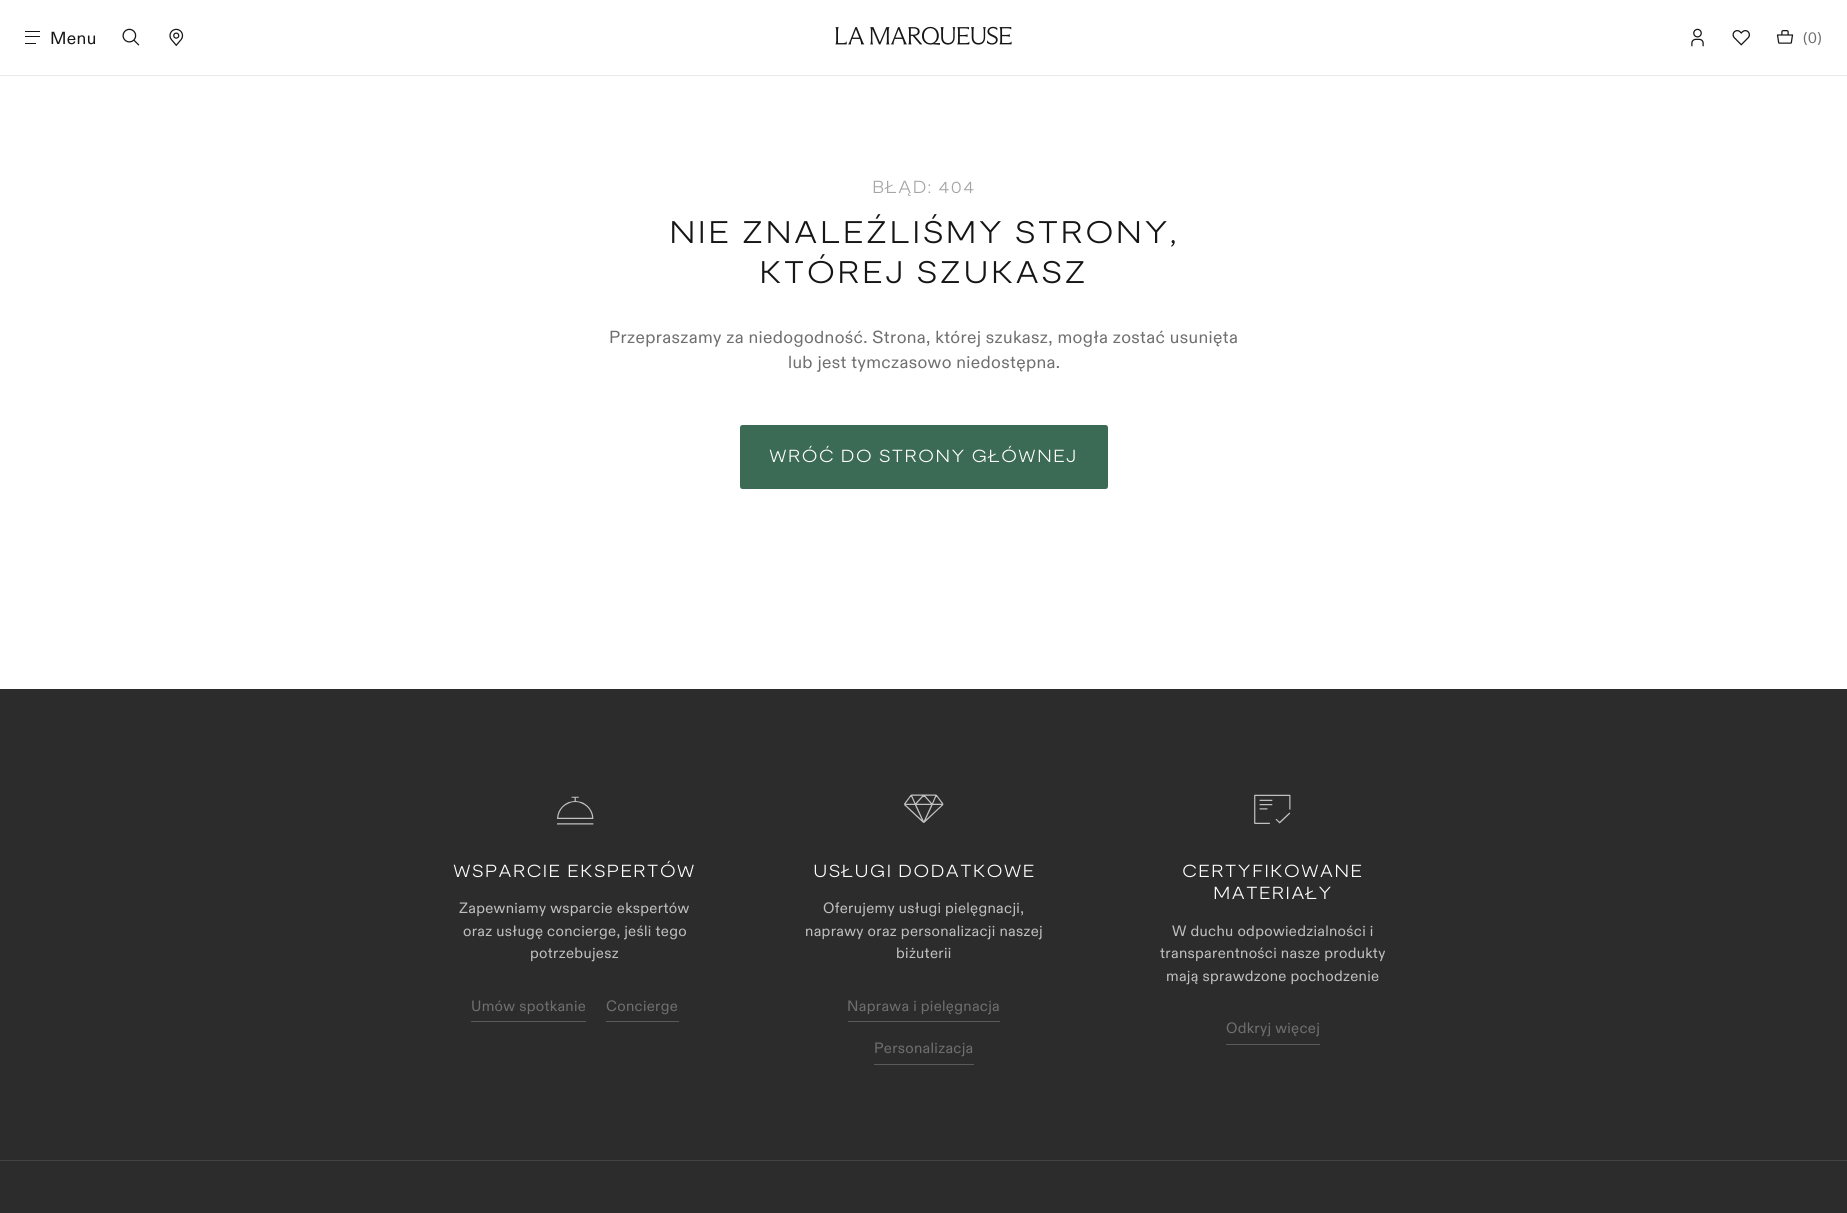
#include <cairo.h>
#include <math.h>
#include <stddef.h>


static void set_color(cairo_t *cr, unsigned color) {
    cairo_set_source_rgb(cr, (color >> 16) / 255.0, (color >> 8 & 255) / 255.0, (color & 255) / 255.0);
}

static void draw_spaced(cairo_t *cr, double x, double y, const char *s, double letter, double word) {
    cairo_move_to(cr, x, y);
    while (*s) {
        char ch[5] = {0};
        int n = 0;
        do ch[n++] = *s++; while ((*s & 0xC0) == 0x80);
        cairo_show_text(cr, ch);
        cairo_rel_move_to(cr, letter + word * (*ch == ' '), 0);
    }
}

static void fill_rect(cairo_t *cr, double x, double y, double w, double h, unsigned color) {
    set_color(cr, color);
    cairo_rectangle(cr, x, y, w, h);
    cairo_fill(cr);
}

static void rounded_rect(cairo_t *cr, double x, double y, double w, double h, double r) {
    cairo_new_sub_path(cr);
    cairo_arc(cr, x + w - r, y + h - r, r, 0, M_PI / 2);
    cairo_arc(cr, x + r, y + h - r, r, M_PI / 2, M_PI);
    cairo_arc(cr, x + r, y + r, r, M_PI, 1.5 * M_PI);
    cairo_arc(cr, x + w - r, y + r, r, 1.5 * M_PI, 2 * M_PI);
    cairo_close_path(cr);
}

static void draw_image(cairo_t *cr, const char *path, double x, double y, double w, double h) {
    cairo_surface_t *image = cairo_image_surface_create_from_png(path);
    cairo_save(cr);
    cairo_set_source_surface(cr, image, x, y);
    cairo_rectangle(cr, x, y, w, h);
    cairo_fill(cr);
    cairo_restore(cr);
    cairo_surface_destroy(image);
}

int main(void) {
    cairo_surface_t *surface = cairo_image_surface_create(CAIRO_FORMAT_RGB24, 1847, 1213);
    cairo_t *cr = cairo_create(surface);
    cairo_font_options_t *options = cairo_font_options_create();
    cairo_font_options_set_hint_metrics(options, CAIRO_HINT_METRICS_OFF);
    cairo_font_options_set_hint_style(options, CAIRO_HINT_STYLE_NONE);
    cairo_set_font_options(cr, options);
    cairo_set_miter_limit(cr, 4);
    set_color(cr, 0xFFFFFF);
    cairo_paint(cr);
    fill_rect(cr, 0, 75, 1847, 1, 0xE9E9E9);
    fill_rect(cr, 25, 31, 15, 1, 0x161616);
    fill_rect(cr, 25, 36, 15, 1, 0x161616);
    fill_rect(cr, 25, 43, 11, 1, 0x161616);
    cairo_select_font_face(cr, "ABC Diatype", CAIRO_FONT_SLANT_NORMAL, CAIRO_FONT_WEIGHT_NORMAL);
    cairo_set_font_size(cr, 17.5);
    draw_spaced(cr, 50, 44, "Menu", 0.35, 0);
    draw_image(cr, "assets/img1.png", 122, 28, 18, 18);
    draw_image(cr, "assets/img2.png", 169, 28, 15, 19);
    draw_image(cr, "assets/img3.png", 835, 26, 177, 19);
    draw_image(cr, "assets/img4.png", 1691, 28, 13, 19);
    draw_image(cr, "assets/img5.png", 1732, 30, 18, 16);
    draw_image(cr, "assets/img6.png", 1776, 30, 18, 14);
    cairo_set_font_size(cr, 15);
    set_color(cr, 0x6F6F6F);
    draw_spaced(cr, 1803, 43, "(0)", 0.3, 0);
    cairo_select_font_face(cr, "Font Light", CAIRO_FONT_SLANT_NORMAL, CAIRO_FONT_WEIGHT_NORMAL);
    cairo_set_font_size(cr, 17.5);
    set_color(cr, 0xA5A5A5);
    draw_spaced(cr, 872, 193, "BŁĄD: 404", 1.05, 0);
    cairo_set_font_size(cr, 31.25);
    set_color(cr, 0x161616);
    draw_spaced(cr, 669, 243, "NIE ZNALEŹLIŚMY STRONY,", 1.9, 0);
    draw_spaced(cr, 759, 283, "KTÓREJ SZUKASZ", 1.9, 0);
    cairo_select_font_face(cr, "ABC Diatype", CAIRO_FONT_SLANT_NORMAL, CAIRO_FONT_WEIGHT_NORMAL);
    cairo_set_font_size(cr, 17.5);
    set_color(cr, 0x6F6F6F);
    draw_spaced(cr, 609, 343, "Przepraszamy za niedogodność. Strona, której szukasz, mogła zostać usunięta", 0.35, 0);
    draw_spaced(cr, 788, 368, "lub jest tymczasowo niedostępna.", 0.35, 0);
    set_color(cr, 0x3B6A55);
    rounded_rect(cr, 740, 425, 368, 64, 2.5);
    cairo_fill(cr);
    cairo_select_font_face(cr, "Font Light", CAIRO_FONT_SLANT_NORMAL, CAIRO_FONT_WEIGHT_NORMAL);
    set_color(cr, 0xFFFFFF);
    draw_spaced(cr, 769, 462, "WRÓĆ DO STRONY GŁÓWNEJ", 1.05, 0);
    fill_rect(cr, 0, 689, 1847, 471, 0x2C2C2C);
    fill_rect(cr, 0, 1160, 1847, 1, 0x434343);
    draw_image(cr, "assets/img7.png", 557, 796, 37, 29);
    set_color(cr, 0xFFFFFF);
    draw_spaced(cr, 453, 877, "WSPARCIE EKSPERTÓW", 1.05, 0);
    cairo_select_font_face(cr, "ABC Diatype", CAIRO_FONT_SLANT_NORMAL, CAIRO_FONT_WEIGHT_NORMAL);
    cairo_set_font_size(cr, 15);
    set_color(cr, 0xC0C0C0);
    draw_spaced(cr, 459, 913, "Zapewniamy wsparcie ekspertów", 0.3, 0);
    draw_spaced(cr, 463, 936, "oraz usługę concierge, jeśli tego", 0.3, 0);
    draw_spaced(cr, 530, 958, "potrzebujesz", 0.3, 0);
    set_color(cr, 0x6F6F6F);
    draw_spaced(cr, 471, 1011, "Umów spotkanie", 0.3, 0);
    fill_rect(cr, 471, 1021, 115, 1, 0x595959);
    set_color(cr, 0x6F6F6F);
    draw_spaced(cr, 606, 1011, "Concierge", 0.3, 0);
    fill_rect(cr, 606, 1021, 73, 1, 0x595959);
    draw_image(cr, "assets/img8.png", 904, 794, 40, 29);
    cairo_select_font_face(cr, "Font Light", CAIRO_FONT_SLANT_NORMAL, CAIRO_FONT_WEIGHT_NORMAL);
    cairo_set_font_size(cr, 17.5);
    set_color(cr, 0xFFFFFF);
    draw_spaced(cr, 813, 877, "USŁUGI DODATKOWE", 1.05, 0);
    cairo_select_font_face(cr, "ABC Diatype", CAIRO_FONT_SLANT_NORMAL, CAIRO_FONT_WEIGHT_NORMAL);
    cairo_set_font_size(cr, 15);
    set_color(cr, 0xC0C0C0);
    draw_spaced(cr, 823, 913, "Oferujemy usługi pielęgnacji,", 0.3, 0);
    draw_spaced(cr, 805, 936, "naprawy oraz personalizacji naszej", 0.3, 0);
    draw_spaced(cr, 896, 958, "biżuterii", 0.3, 0);
    set_color(cr, 0x6F6F6F);
    draw_spaced(cr, 847, 1011, "Naprawa i pielęgnacja", 0.3, 0);
    fill_rect(cr, 848, 1021, 152, 1, 0x595959);
    set_color(cr, 0x6F6F6F);
    draw_spaced(cr, 874, 1053, "Personalizacja", 0.3, 0);
    fill_rect(cr, 874, 1064, 100, 1, 0x595959);
    draw_image(cr, "assets/img9.png", 1254, 794, 37, 30);
    cairo_select_font_face(cr, "Font Light", CAIRO_FONT_SLANT_NORMAL, CAIRO_FONT_WEIGHT_NORMAL);
    cairo_set_font_size(cr, 17.5);
    set_color(cr, 0xFFFFFF);
    draw_spaced(cr, 1182, 877, "CERTYFIKOWANE", 1.05, 0);
    draw_spaced(cr, 1213, 899, "MATERIAŁY", 1.05, 0);
    cairo_select_font_face(cr, "ABC Diatype", CAIRO_FONT_SLANT_NORMAL, CAIRO_FONT_WEIGHT_NORMAL);
    cairo_set_font_size(cr, 15);
    set_color(cr, 0xC0C0C0);
    draw_spaced(cr, 1172, 936, "W duchu odpowiedzialności i", 0.3, 0);
    draw_spaced(cr, 1160, 958, "transparentności nasze produkty", 0.3, 0);
    draw_spaced(cr, 1166, 981, "mają sprawdzone pochodzenie", 0.3, 0);
    set_color(cr, 0x6F6F6F);
    draw_spaced(cr, 1226, 1033, "Odkryj więcej", 0.3, 0);
    fill_rect(cr, 1226, 1044, 94, 1, 0x595959);
    fill_rect(cr, 0, 1161, 1847, 52, 0x2C2C2C);
    cairo_surface_write_to_png(surface, "output.png");
    cairo_font_options_destroy(options);
    cairo_destroy(cr);
    cairo_surface_destroy(surface);
    return 0;
}
